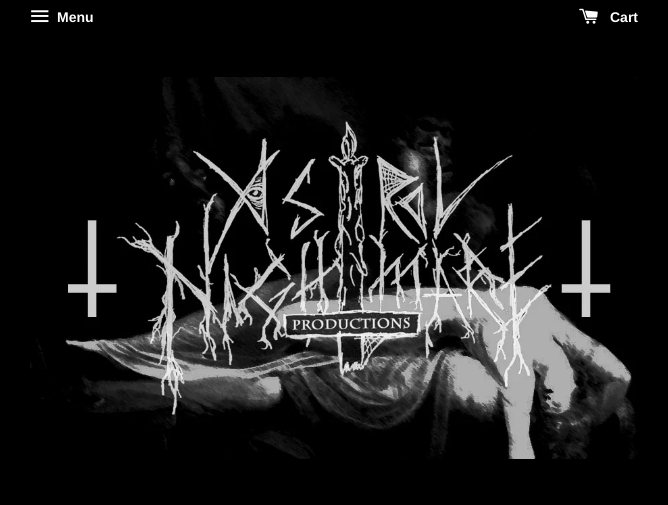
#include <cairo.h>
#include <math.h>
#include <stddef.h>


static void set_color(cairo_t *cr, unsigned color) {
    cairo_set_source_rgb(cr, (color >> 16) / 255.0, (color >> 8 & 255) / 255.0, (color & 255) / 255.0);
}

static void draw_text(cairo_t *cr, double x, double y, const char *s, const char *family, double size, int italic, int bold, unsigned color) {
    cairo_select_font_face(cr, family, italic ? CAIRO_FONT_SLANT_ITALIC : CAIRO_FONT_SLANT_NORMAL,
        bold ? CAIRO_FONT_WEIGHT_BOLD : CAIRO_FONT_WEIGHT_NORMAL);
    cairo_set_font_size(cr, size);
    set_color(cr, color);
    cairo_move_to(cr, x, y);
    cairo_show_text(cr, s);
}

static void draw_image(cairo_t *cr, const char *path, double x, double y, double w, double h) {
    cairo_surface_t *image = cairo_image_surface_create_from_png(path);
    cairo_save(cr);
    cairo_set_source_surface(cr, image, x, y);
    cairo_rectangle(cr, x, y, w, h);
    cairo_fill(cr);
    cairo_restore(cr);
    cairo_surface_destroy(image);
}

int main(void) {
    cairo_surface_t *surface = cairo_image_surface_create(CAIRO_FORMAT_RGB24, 668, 505);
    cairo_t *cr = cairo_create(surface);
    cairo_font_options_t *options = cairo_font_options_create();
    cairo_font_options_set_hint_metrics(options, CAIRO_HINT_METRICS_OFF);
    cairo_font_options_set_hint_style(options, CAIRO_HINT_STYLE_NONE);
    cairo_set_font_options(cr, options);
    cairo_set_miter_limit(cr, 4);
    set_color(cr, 0x000000);
    cairo_paint(cr);
    draw_image(cr, "assets/img1.png", 31, 10, 18, 13);
    draw_text(cr, 57, 22, "Menu", "Liberation Sans", 14, 0, 1, 0xFFFFFF);
    draw_image(cr, "assets/img2.png", 579, 8, 19, 16);
    draw_text(cr, 610, 22, "Cart", "Liberation Sans", 14, 0, 1, 0xFFFFFF);
    draw_image(cr, "assets/img3.png", 30, 77, 608, 382);
    cairo_surface_write_to_png(surface, "output.png");
    cairo_font_options_destroy(options);
    cairo_destroy(cr);
    cairo_surface_destroy(surface);
    return 0;
}
